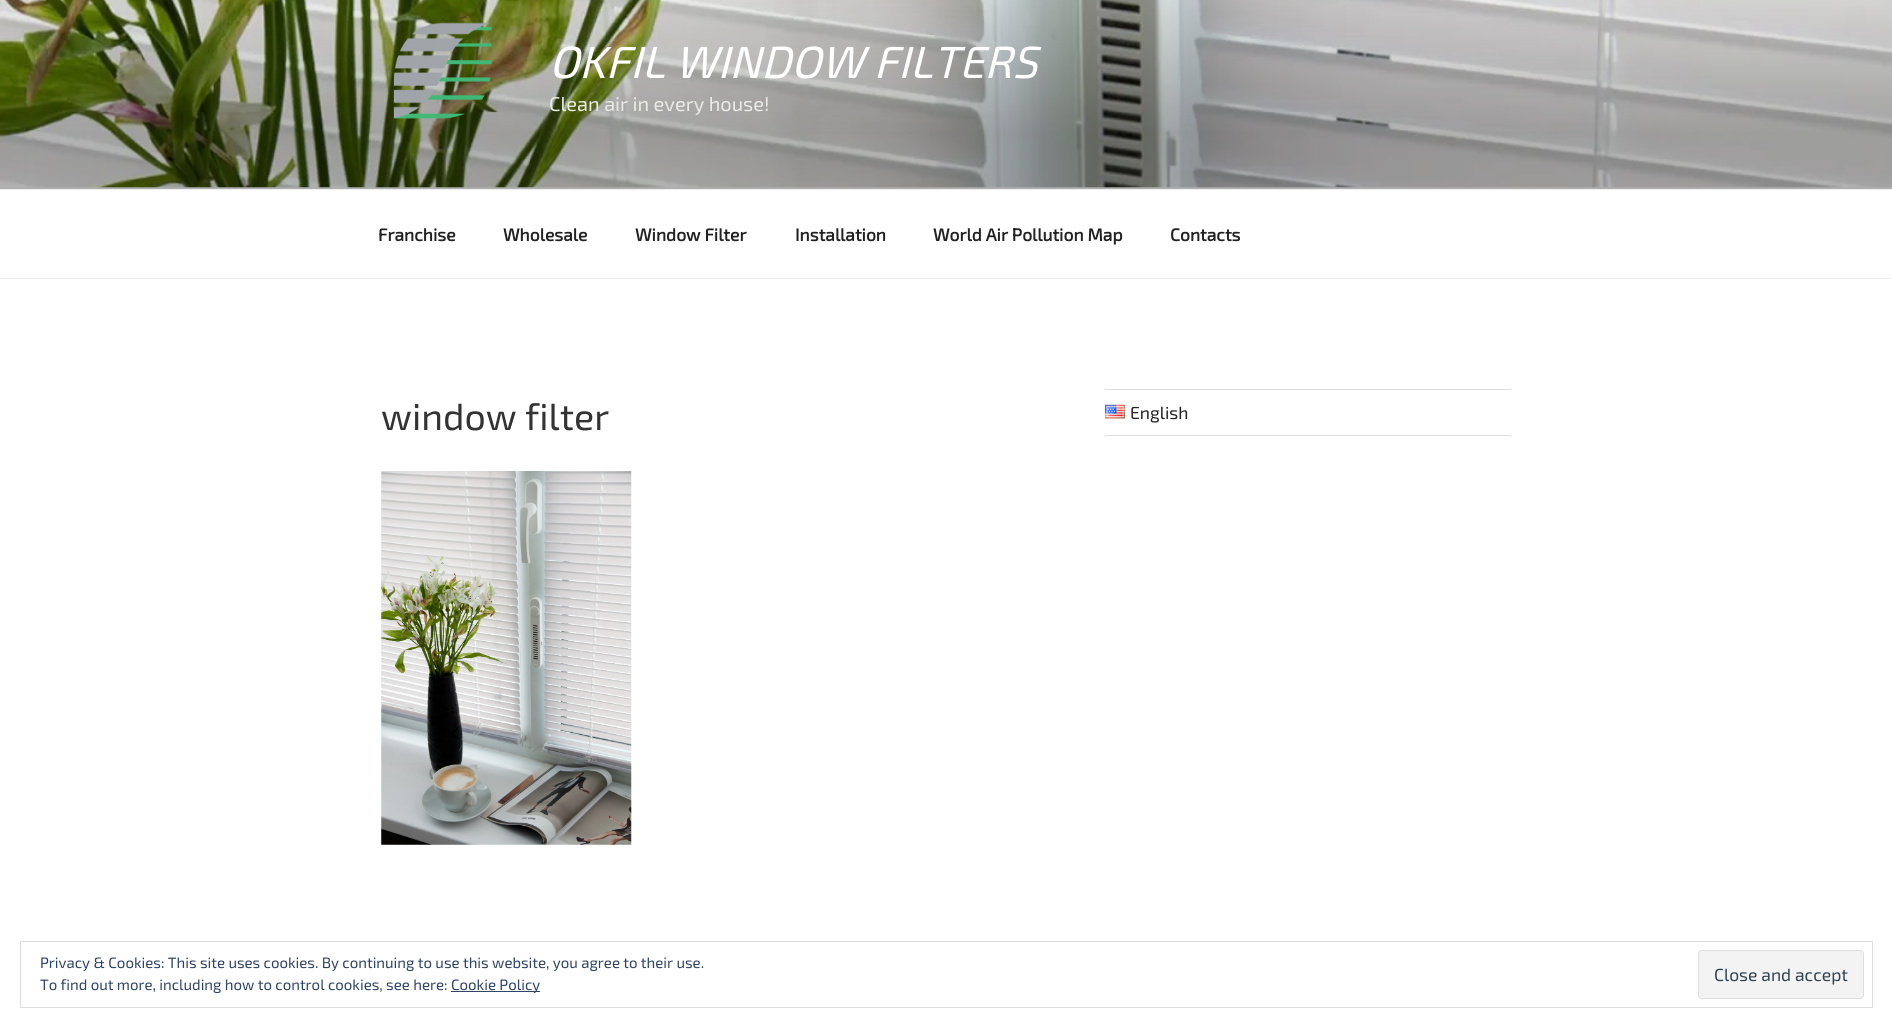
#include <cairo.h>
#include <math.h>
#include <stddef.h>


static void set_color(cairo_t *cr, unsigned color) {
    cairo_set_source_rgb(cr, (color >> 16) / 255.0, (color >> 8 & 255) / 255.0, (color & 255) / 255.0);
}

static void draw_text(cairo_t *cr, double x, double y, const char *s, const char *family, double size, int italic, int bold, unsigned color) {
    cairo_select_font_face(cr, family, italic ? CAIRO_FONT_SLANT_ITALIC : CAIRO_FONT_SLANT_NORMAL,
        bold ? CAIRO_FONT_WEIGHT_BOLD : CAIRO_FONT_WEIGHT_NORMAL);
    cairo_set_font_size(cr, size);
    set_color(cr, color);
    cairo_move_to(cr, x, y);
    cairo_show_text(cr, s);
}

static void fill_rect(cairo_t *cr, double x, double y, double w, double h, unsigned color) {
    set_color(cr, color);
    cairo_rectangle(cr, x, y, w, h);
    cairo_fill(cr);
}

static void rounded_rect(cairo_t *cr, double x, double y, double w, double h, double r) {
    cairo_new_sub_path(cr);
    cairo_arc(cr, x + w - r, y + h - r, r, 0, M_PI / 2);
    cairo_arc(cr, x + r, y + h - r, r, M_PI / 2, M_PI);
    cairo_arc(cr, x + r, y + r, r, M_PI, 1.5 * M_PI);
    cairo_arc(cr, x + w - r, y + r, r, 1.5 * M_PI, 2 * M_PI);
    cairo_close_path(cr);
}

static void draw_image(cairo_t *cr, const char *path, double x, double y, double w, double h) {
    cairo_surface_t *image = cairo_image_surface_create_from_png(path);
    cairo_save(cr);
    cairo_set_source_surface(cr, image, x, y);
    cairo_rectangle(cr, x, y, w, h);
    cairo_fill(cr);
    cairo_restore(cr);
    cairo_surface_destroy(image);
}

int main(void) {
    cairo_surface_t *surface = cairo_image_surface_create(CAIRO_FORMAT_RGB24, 1892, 1027);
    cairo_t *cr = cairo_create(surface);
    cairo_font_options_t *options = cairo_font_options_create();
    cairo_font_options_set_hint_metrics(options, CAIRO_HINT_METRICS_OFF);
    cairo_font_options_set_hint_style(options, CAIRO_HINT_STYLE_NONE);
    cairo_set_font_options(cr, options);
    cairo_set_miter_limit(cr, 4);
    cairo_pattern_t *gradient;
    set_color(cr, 0xFFFFFF);
    cairo_paint(cr);
    fill_rect(cr, 0, 187, 1892, 2, 0xFAFAFA);
    draw_image(cr, "assets/img1.png", 0, 0, 1892, 188);
    gradient = cairo_pattern_create_linear(946, -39, 946, 189);
    cairo_pattern_add_color_stop_rgba(gradient, 0, 0, 0, 0, 0);
    cairo_pattern_add_color_stop_rgba(gradient, 0.75, 0, 0, 0, 0.3);
    cairo_pattern_add_color_stop_rgba(gradient, 1, 0, 0, 0, 0.3);
    cairo_set_source(cr, gradient);
    cairo_pattern_destroy(gradient);
    cairo_rectangle(cr, 0, 0, 1892, 189);
    cairo_fill(cr);
    draw_image(cr, "assets/img2.png", 393, 22, 99, 97);
    draw_text(cr, 549, 78, "OKFIL WINDOW FILTERS", "Exo 2", 45, 1, 0, 0xFFFFFF);
    draw_text(cr, 549, 111, "Clean air in every house!", "Exo 2", 20, 0, 0, 0xEAEAE7);
    fill_rect(cr, 0, 189, 1892, 1, 0xEEEEEE);
    fill_rect(cr, 0, 278, 1892, 1, 0xEEEEEE);
    draw_text(cr, 378, 241, "Franchise", "Exo 2", 17.5, 0, 1, 0x222222);
    draw_text(cr, 503, 241, "Wholesale", "Exo 2", 17.5, 0, 1, 0x222222);
    draw_text(cr, 635, 241, "Window Filter", "Exo 2", 17.5, 0, 1, 0x222222);
    draw_text(cr, 795, 241, "Installation", "Exo 2", 17.5, 0, 1, 0x222222);
    draw_text(cr, 933, 241, "World Air Pollution Map", "Exo 2", 17.5, 0, 1, 0x222222);
    draw_text(cr, 1170, 241, "Contacts", "Exo 2", 17.5, 0, 1, 0x222222);
    draw_text(cr, 381, 430, "window filter", "Exo 2", 37.5, 0, 0, 0x333333);
    draw_image(cr, "assets/img3.png", 381, 471, 251, 374);
    fill_rect(cr, 1105, 389, 406, 1, 0xDDDDDD);
    fill_rect(cr, 1105, 435, 406, 1, 0xDDDDDD);
    draw_image(cr, "assets/img4.png", 1105, 404, 20, 15);
    draw_text(cr, 1130, 419, "English", "Exo 2", 17.5, 0, 0, 0x222222);
    cairo_rectangle(cr, 20.5, 941.5, 1852, 66);
    set_color(cr, 0xDEDEDE);
    cairo_set_line_width(cr, 1);
    cairo_stroke(cr);
    draw_text(cr, 40, 968, "Privacy & Cookies: This site uses cookies. By continuing to use this website, you agree to their use.", "Exo 2", 15, 0, 0, 0x2E4467);
    draw_text(cr, 40, 990, "To find out more, including how to control cookies, see here:", "Exo 2", 15, 0, 0, 0x2E4467);
    fill_rect(cr, 451, 991, 89, 1, 0x2E4467);
    draw_text(cr, 451, 990, "Cookie Policy", "Exo 2", 15, 0, 0, 0x2E4467);
    set_color(cr, 0xF3F3F3);
    rounded_rect(cr, 1698.5, 950.5, 165, 48, 3.5);
    cairo_fill_preserve(cr);
    set_color(cr, 0xDEDEDE);
    cairo_stroke(cr);
    draw_text(cr, 1714, 981, "Close and accept", "Exo 2", 17.5, 0, 0, 0x2E4453);
    cairo_surface_write_to_png(surface, "output.png");
    cairo_font_options_destroy(options);
    cairo_destroy(cr);
    cairo_surface_destroy(surface);
    return 0;
}
